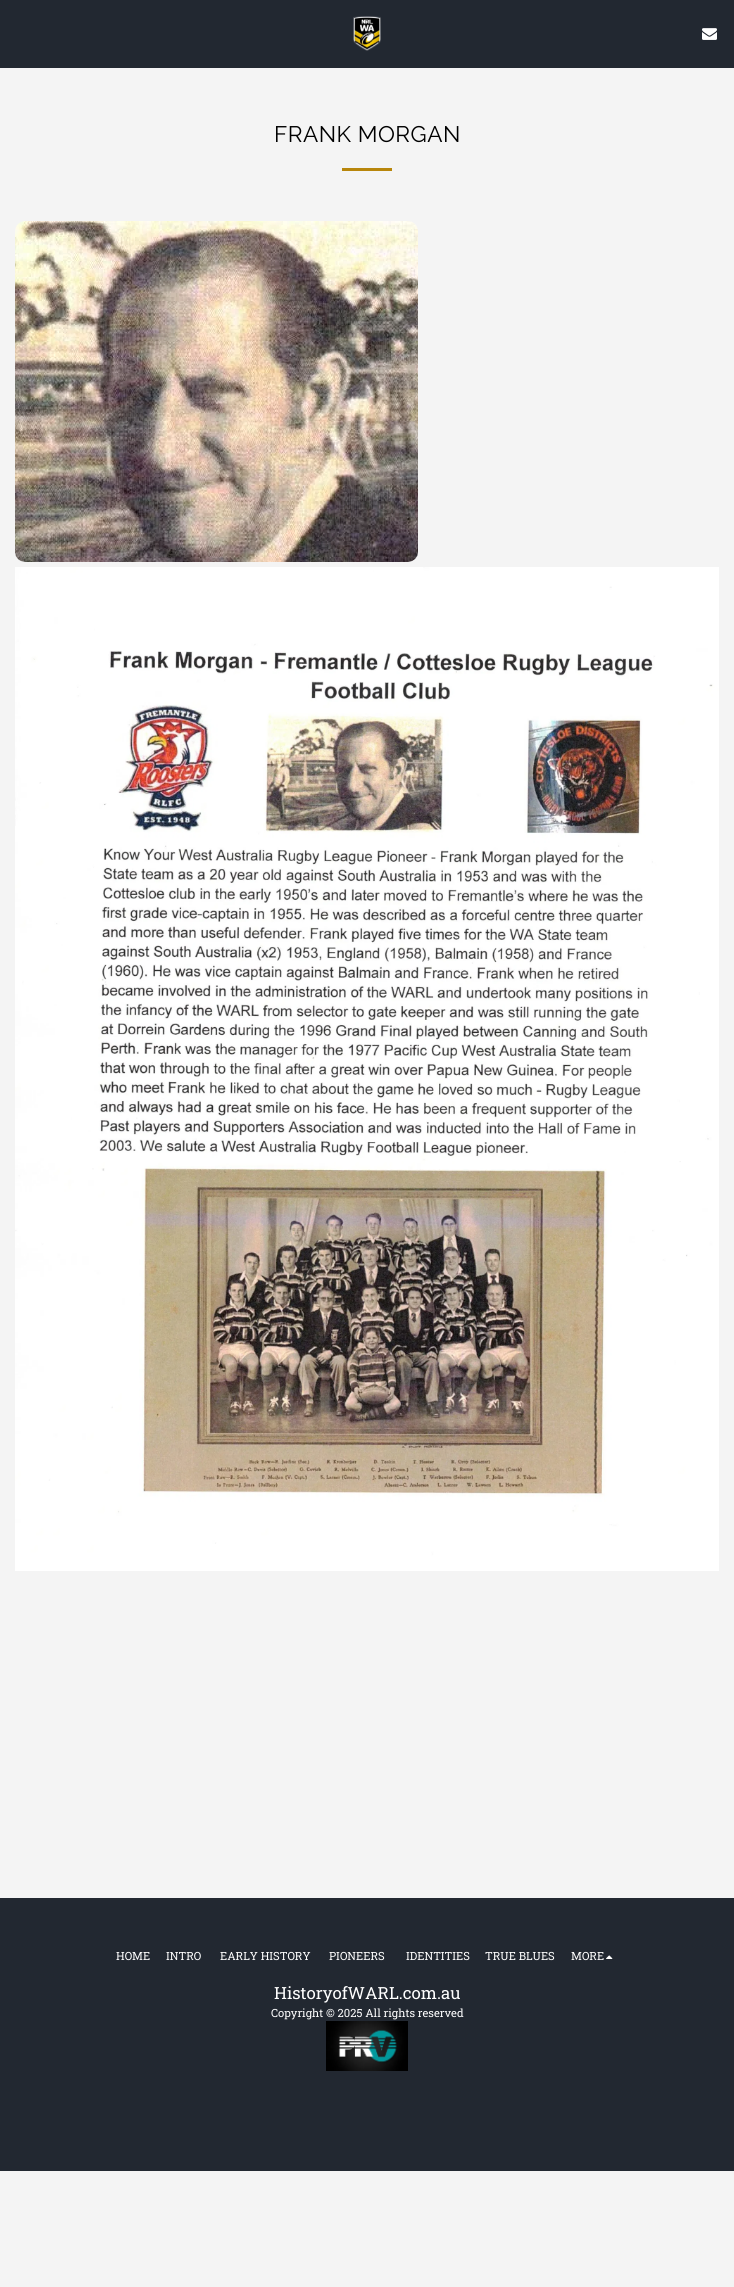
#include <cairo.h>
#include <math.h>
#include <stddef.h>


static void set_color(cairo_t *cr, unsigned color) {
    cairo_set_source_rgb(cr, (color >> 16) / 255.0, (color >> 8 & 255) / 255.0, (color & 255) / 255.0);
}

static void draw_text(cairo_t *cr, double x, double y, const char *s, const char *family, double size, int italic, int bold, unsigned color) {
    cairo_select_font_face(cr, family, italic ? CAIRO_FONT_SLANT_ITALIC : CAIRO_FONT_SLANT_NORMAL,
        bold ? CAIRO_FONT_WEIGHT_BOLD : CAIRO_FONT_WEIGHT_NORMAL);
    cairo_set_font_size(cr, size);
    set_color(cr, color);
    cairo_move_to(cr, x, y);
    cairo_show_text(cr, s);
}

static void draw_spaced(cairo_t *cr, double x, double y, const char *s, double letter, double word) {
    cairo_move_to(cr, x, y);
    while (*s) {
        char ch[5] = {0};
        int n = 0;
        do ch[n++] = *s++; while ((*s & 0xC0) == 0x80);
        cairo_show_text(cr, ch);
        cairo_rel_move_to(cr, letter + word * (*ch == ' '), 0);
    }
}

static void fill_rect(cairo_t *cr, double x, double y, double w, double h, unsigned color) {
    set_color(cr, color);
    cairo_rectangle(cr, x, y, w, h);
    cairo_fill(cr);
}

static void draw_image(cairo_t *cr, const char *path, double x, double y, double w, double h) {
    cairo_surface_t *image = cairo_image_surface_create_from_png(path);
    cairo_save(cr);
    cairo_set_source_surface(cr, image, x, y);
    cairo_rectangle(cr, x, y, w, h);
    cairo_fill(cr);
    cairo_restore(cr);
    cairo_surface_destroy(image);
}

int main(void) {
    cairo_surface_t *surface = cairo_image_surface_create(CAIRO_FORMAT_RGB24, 734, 2287);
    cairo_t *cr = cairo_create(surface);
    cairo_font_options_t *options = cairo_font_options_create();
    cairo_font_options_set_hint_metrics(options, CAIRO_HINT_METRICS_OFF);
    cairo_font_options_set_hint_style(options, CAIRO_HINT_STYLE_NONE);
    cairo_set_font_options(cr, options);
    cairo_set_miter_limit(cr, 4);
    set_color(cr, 0xF4F4F4);
    cairo_paint(cr);
    fill_rect(cr, 0, 0, 734, 68, 0x222831);
    draw_image(cr, "assets/img1.png", 353, 16, 28, 35);
    draw_image(cr, "assets/img2.png", 702, 28, 15, 12);
    cairo_select_font_face(cr, "Raleway", CAIRO_FONT_SLANT_NORMAL, CAIRO_FONT_WEIGHT_NORMAL);
    cairo_set_font_size(cr, 22.5);
    set_color(cr, 0x000000);
    draw_spaced(cr, 274, 142, "FRANK MORGAN", 0.5, 0);
    fill_rect(cr, 342, 168, 50, 3, 0xB8860B);
    draw_image(cr, "assets/img3.png", 15, 221, 403, 341);
    draw_image(cr, "assets/img4.png", 15, 567, 704, 1004);
    fill_rect(cr, 0, 1898, 734, 273, 0x222831);
    draw_text(cr, 116, 1960, "HOME", "Roboto Slab", 11.25, 0, 0, 0xFFFFFF);
    draw_text(cr, 166, 1960, "INTRO", "Roboto Slab", 11.25, 0, 0, 0xFFFFFF);
    draw_text(cr, 220, 1960, "EARLY HISTORY", "Roboto Slab", 11.25, 0, 0, 0xFFFFFF);
    draw_text(cr, 329, 1960, "PIONEERS", "Roboto Slab", 11.25, 0, 0, 0xFFFFFF);
    draw_text(cr, 406, 1960, "IDENTITIES", "Roboto Slab", 11.25, 0, 0, 0xFFFFFF);
    draw_text(cr, 485, 1960, "TRUE BLUES", "Roboto Slab", 11.25, 0, 0, 0xFFFFFF);
    draw_text(cr, 571, 1960, "MORE", "Roboto Slab", 11.25, 0, 0, 0xFFFFFF);
    draw_image(cr, "assets/img5.png", 606, 1955, 7, 4);
    draw_text(cr, 274, 1999, "HistoryofWARL.com.au", "Roboto Slab", 16.75, 0, 0, 0xFFFFFF);
    draw_text(cr, 271, 2017, "Copyright © 2025 All rights reserved", "Roboto Slab", 11.25, 0, 0, 0xFFFFFF);
    draw_image(cr, "assets/img6.png", 326, 2021, 82, 50);
    cairo_surface_write_to_png(surface, "output.png");
    cairo_font_options_destroy(options);
    cairo_destroy(cr);
    cairo_surface_destroy(surface);
    return 0;
}
